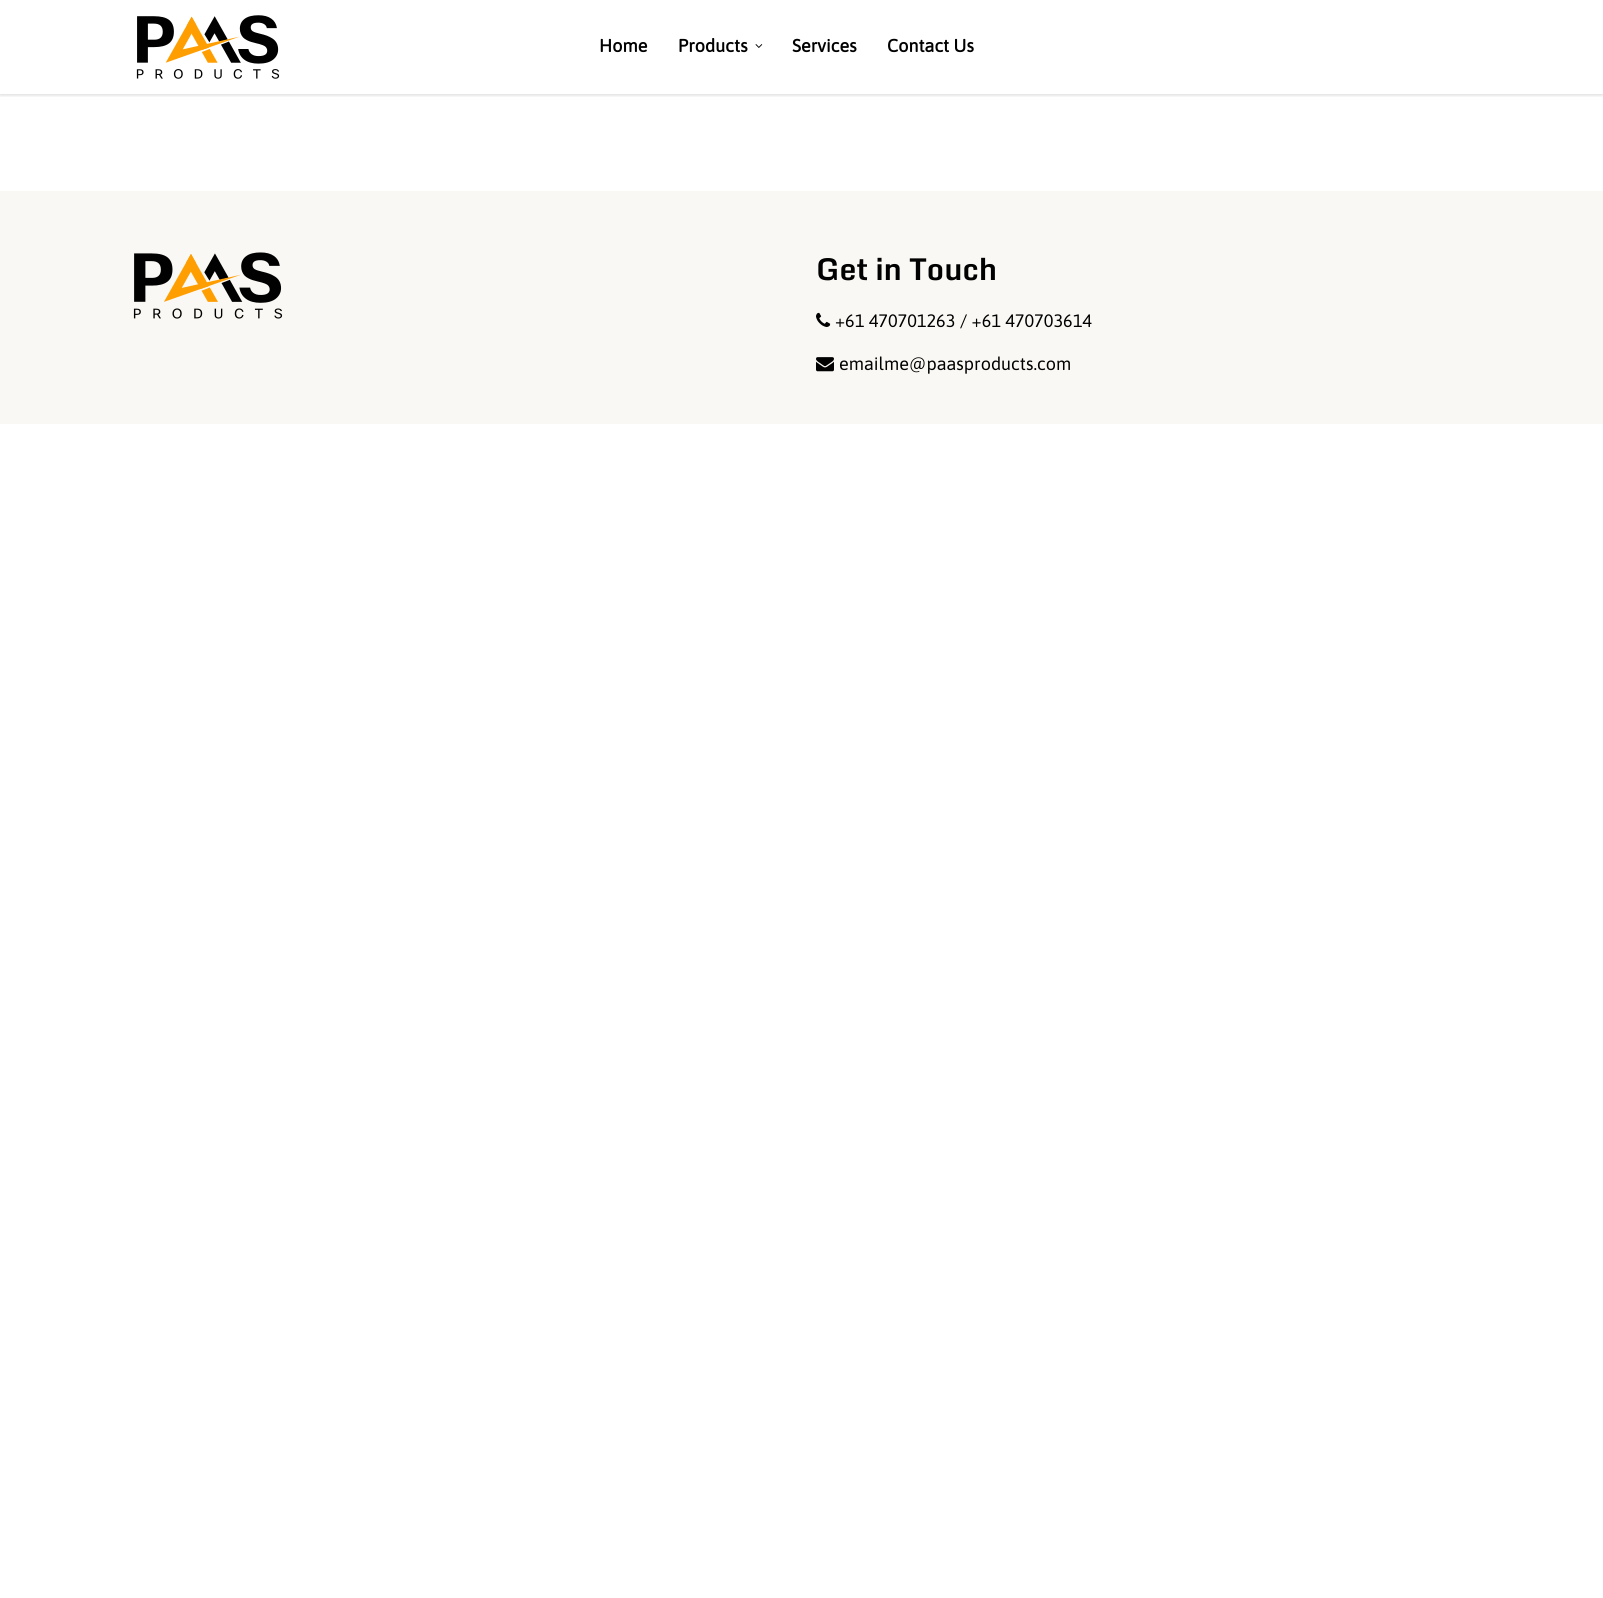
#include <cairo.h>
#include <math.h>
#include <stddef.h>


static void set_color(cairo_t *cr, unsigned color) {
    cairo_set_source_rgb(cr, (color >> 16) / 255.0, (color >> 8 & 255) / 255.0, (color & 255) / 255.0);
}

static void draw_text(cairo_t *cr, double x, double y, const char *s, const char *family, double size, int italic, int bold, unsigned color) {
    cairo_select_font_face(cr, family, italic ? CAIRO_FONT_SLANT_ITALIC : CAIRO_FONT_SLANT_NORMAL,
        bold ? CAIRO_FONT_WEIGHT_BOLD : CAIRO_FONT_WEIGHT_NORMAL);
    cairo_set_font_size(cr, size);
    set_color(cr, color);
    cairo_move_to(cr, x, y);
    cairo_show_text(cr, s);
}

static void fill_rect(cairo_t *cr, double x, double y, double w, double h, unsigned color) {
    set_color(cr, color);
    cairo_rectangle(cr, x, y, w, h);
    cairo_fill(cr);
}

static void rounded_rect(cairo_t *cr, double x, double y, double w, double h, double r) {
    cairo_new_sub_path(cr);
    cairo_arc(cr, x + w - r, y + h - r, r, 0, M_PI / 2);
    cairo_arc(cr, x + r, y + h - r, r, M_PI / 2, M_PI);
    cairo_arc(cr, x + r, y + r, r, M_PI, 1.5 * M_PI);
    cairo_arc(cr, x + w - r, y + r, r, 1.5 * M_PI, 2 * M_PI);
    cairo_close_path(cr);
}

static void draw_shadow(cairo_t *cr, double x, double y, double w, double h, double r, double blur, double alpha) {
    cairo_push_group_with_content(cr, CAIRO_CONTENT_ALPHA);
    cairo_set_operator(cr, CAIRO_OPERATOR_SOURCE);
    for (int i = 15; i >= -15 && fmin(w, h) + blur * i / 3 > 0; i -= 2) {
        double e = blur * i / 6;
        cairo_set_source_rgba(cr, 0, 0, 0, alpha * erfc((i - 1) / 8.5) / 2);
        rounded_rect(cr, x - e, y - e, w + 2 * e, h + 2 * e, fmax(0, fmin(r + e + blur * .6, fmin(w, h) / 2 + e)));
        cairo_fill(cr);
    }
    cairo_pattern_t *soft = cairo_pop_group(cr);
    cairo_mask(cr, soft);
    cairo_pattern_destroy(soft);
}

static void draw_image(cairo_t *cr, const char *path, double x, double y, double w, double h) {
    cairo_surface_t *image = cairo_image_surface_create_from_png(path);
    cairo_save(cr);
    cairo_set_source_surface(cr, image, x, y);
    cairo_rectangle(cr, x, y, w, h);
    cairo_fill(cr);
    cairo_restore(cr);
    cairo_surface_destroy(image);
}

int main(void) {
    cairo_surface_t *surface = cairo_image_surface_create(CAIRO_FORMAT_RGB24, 1603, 1598);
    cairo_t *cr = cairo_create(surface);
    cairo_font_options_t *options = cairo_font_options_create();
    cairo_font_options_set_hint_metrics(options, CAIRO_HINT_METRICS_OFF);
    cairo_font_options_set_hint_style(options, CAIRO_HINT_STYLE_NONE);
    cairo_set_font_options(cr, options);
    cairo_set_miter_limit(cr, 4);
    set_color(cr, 0xFFFFFF);
    cairo_paint(cr);
    cairo_save(cr);
    cairo_rectangle(cr, 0, 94, 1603, 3);
    cairo_clip(cr);
    set_color(cr, 0x000000);
    draw_shadow(cr, 0, 1, 1603, 94, 0, 2, 0.16);
    cairo_restore(cr);
    draw_image(cr, "assets/img1.png", 136, 15, 144, 64);
    draw_text(cr, 599, 52, "Home", "Asap", 18, 0, 1, 0x010101);
    draw_text(cr, 678, 52, "Products", "Asap", 18, 0, 1, 0x010101);
    draw_image(cr, "assets/img2.png", 755, 44, 8, 4);
    draw_text(cr, 792, 52, "Services", "Asap", 18, 0, 1, 0x010101);
    draw_text(cr, 887, 52, "Contact Us", "Asap", 18, 0, 1, 0x010101);
    fill_rect(cr, 0, 191, 1603, 233, 0xF9F8F4);
    draw_image(cr, "assets/img3.png", 133, 252, 150, 67);
    draw_text(cr, 816, 280, "Get in Touch", "Monda", 30, 0, 1, 0x010101);
    draw_image(cr, "assets/img4.png", 816, 312, 15, 15);
    draw_text(cr, 835, 327, "+61 470701263 / +61 470703614", "Asap", 18, 0, 0, 0x010101);
    draw_image(cr, "assets/img5.png", 816, 357, 18, 15);
    draw_text(cr, 839, 370, "emailme@paasproducts.com", "Asap", 18, 0, 0, 0x010101);
    cairo_surface_write_to_png(surface, "output.png");
    cairo_font_options_destroy(options);
    cairo_destroy(cr);
    cairo_surface_destroy(surface);
    return 0;
}
